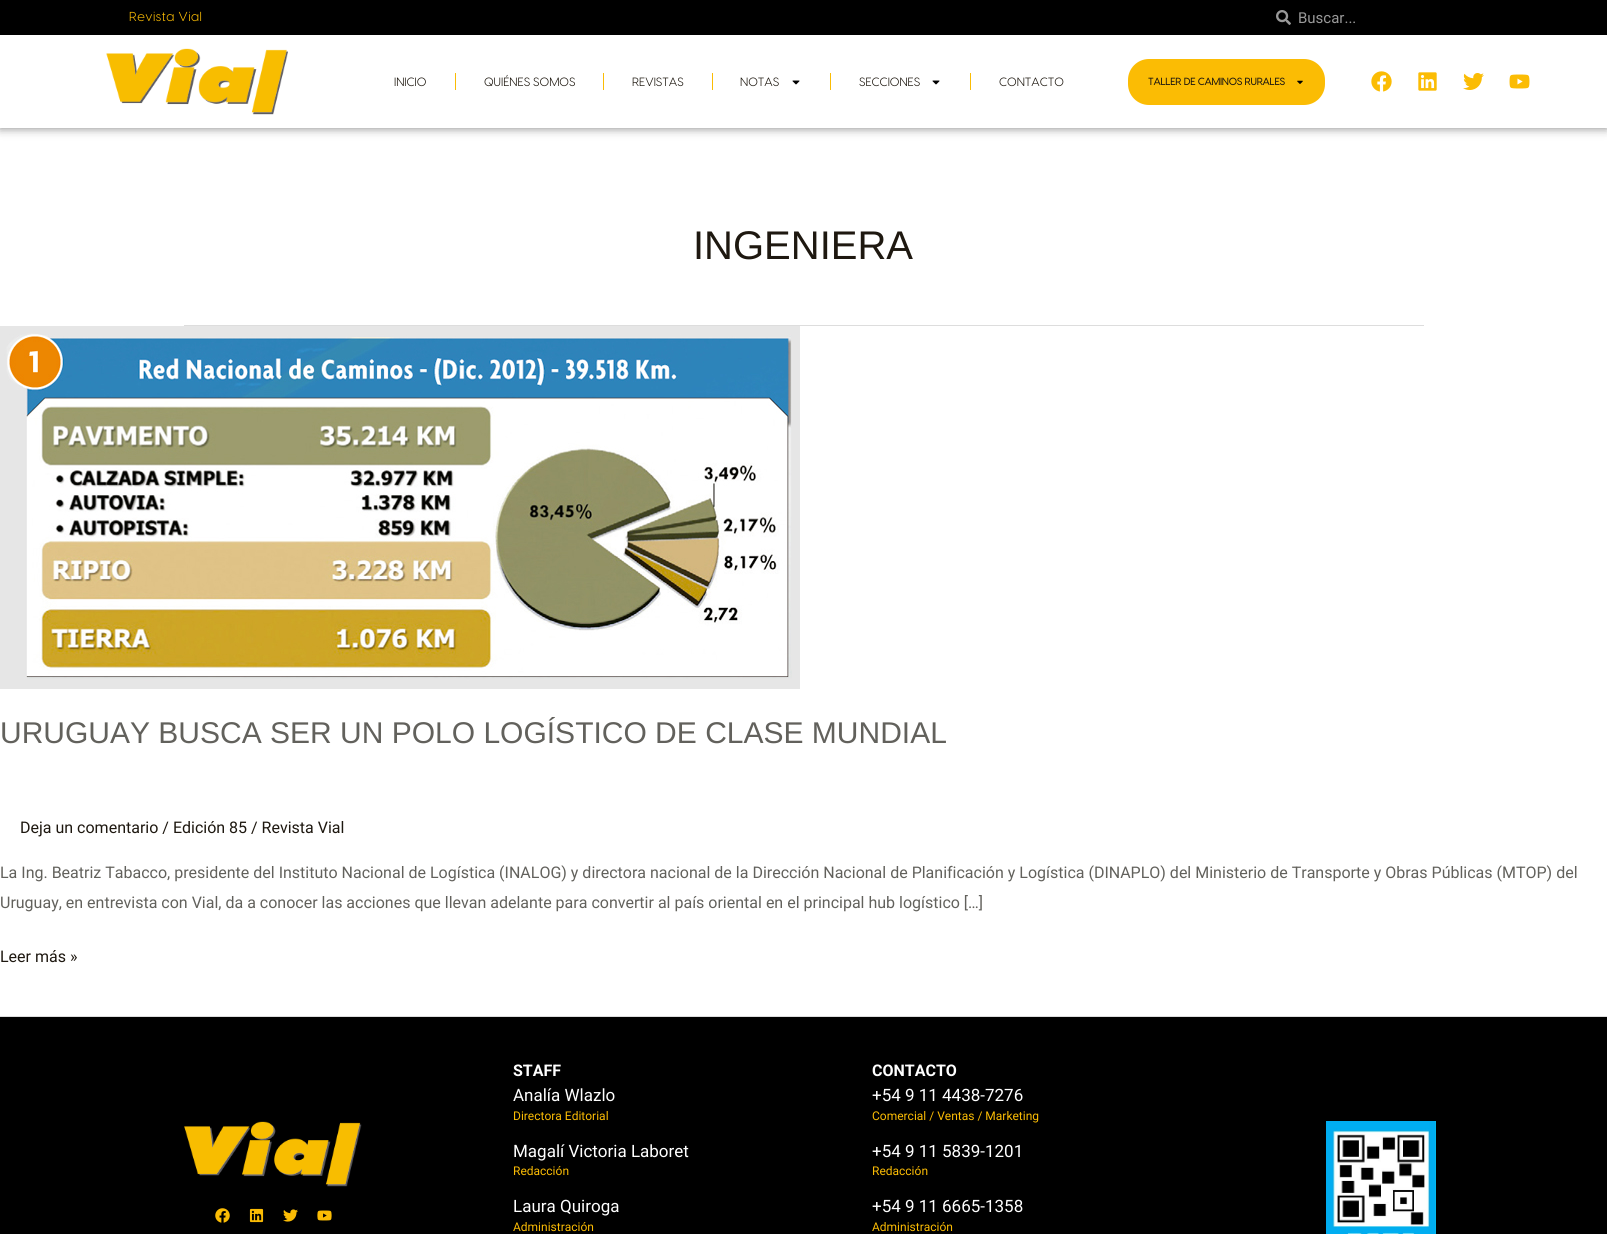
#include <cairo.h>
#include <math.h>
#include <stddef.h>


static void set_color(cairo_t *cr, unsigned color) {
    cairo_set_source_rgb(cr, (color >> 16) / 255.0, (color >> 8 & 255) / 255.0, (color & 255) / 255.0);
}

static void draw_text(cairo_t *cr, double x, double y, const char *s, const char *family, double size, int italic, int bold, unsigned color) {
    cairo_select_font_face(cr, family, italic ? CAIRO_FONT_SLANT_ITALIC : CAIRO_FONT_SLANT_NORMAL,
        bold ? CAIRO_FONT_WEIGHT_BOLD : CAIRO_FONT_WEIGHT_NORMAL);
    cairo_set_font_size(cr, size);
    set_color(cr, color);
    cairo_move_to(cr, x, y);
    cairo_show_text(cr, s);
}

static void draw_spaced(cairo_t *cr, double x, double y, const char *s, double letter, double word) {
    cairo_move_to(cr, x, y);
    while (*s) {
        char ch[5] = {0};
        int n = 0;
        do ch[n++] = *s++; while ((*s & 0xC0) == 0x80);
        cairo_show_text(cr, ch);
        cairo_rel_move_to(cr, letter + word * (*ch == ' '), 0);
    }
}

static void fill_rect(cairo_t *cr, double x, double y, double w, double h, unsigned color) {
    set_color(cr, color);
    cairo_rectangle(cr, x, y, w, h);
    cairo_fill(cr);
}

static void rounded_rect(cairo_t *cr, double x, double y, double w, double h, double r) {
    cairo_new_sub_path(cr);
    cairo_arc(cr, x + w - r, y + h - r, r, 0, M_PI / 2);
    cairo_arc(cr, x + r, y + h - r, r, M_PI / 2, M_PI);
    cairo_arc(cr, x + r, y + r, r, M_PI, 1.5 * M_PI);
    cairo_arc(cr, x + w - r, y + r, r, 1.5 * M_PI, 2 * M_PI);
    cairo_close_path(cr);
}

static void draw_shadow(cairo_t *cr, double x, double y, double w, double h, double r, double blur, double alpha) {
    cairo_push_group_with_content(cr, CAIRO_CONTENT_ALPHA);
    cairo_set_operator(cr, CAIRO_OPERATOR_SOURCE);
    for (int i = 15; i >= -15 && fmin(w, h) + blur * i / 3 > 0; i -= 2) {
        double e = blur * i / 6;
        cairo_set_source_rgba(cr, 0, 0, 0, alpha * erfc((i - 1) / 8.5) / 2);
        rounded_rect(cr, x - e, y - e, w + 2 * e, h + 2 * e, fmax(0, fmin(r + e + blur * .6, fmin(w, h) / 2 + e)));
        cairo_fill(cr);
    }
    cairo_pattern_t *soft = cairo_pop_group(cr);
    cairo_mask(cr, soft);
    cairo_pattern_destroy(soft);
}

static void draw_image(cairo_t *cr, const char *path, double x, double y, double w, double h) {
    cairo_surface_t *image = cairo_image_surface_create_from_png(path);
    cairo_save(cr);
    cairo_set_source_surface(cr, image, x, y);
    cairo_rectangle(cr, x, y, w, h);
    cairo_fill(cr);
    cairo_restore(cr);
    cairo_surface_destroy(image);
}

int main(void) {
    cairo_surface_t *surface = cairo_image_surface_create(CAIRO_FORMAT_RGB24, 1607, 1234);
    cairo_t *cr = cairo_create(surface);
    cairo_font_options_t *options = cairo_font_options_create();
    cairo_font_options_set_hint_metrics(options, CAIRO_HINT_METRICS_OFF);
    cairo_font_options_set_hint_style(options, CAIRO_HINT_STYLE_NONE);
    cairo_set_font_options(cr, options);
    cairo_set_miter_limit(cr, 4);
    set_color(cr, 0xFFFFFF);
    cairo_paint(cr);
    fill_rect(cr, 0, 0, 1607, 35, 0x000000);
    cairo_select_font_face(cr, "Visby", CAIRO_FONT_SLANT_NORMAL, CAIRO_FONT_WEIGHT_NORMAL);
    cairo_set_font_size(cr, 13);
    set_color(cr, 0xFBBC04);
    draw_spaced(cr, 129, 21, "Revista Vial", 0.5, 0);
    draw_image(cr, "assets/img1.png", 1276, 10, 15, 15);
    draw_text(cr, 1298, 23, "Buscar...", "Roboto", 15, 0, 0, 0x999999);
    set_color(cr, 0x000000);
    draw_shadow(cr, 0, 35, 1607, 93, 0, 5, 0.5);
    fill_rect(cr, 0, 35, 1607, 93, 0xFFFFFF);
    draw_image(cr, "assets/img2.png", 106, 48, 182, 67);
    draw_text(cr, 394, 86, "INICIO", "Visby", 12, 0, 0, 0x1E1810);
    fill_rect(cr, 455, 73, 1, 17, 0xFBBC04);
    draw_text(cr, 484, 86, "QUIÉNES SOMOS", "Visby", 12, 0, 0, 0x1E1810);
    fill_rect(cr, 603, 73, 1, 17, 0xFBBC04);
    draw_text(cr, 632, 86, "REVISTAS", "Visby", 12, 0, 0, 0x1E1810);
    fill_rect(cr, 712, 73, 1, 17, 0xFBBC04);
    draw_text(cr, 740, 86, "NOTAS", "Visby", 12, 0, 0, 0x1E1810);
    draw_image(cr, "assets/img3.png", 792, 80, 8, 5);
    fill_rect(cr, 830, 73, 1, 17, 0xFBBC04);
    draw_text(cr, 859, 86, "SECCIONES", "Visby", 12, 0, 0, 0x1E1810);
    draw_image(cr, "assets/img3.png", 932, 80, 8, 5);
    fill_rect(cr, 970, 73, 1, 17, 0xFBBC04);
    draw_text(cr, 999, 86, "CONTACTO", "Visby", 12, 0, 0, 0x1E1810);
    set_color(cr, 0xFBBC04);
    rounded_rect(cr, 1128, 59, 197, 46, 21);
    cairo_fill(cr);
    draw_text(cr, 1148, 85, "TALLER DE CAMINOS RURALES", "Visby", 10, 0, 1, 0x1E1810);
    draw_image(cr, "assets/img4.png", 1297, 80, 6, 4);
    draw_image(cr, "assets/img5.png", 1371, 71, 21, 21);
    draw_image(cr, "assets/img6.png", 1418, 72, 19, 19);
    draw_image(cr, "assets/img7.png", 1463, 73, 21, 17);
    draw_image(cr, "assets/img8.png", 1509, 74, 21, 15);
    fill_rect(cr, 184, 325, 1240, 1, 0xDDDDDD);
    draw_text(cr, 693, 259, "INGENIERA", "Liberation Sans", 40, 0, 0, 0x1E1810);
    fill_rect(cr, 0, 1016, 1607, 1, 0xDDDDDD);
    draw_image(cr, "assets/img9.png", 0, 326, 800, 363);
    draw_text(cr, 0, 743, "URUGUAY BUSCA SER UN POLO LOGÍSTICO DE CLASE MUNDIAL", "Liberation Sans", 30, 0, 0, 0x62615C);
    draw_text(cr, 20, 833, "Deja un comentario / Edición 85 / Revista Vial", "Roboto", 16, 0, 0, 0x1E1810);
    draw_text(cr, 0, 878, "La Ing. Beatriz Tabacco, presidente del Instituto Nacional de Logística (INALOG) y directora nacional de la Dirección Nacional de Planificación y Logística (DINAPLO) del Ministerio de Transporte y Obras Públicas (MTOP) del", "Roboto", 16, 0, 0, 0x62615C);
    draw_text(cr, 0, 908, "Uruguay, en entrevista con Vial, da a conocer las acciones que llevan adelante para convertir al país oriental en el principal hub logístico […]", "Roboto", 16, 0, 0, 0x62615C);
    draw_text(cr, 0, 962, "Leer más »", "Roboto", 16, 0, 0, 0x1E1810);
    fill_rect(cr, 0, 1017, 1607, 217, 0x000000);
    draw_image(cr, "assets/img10.png", 184, 1121, 178, 66);
    draw_image(cr, "assets/img11.png", 215, 1208, 15, 15);
    draw_image(cr, "assets/img12.png", 249, 1208, 15, 15);
    draw_image(cr, "assets/img13.png", 283, 1209, 15, 13);
    draw_image(cr, "assets/img14.png", 317, 1210, 15, 11);
    draw_text(cr, 513, 1076, "STAFF", "Roboto", 16, 0, 1, 0xFFFFFF);
    draw_text(cr, 513, 1101, "Analía Wlazlo", "Roboto", 17, 0, 0, 0xFFFFFF);
    draw_text(cr, 513, 1120, "Directora Editorial", "Roboto", 12, 0, 0, 0xFBBC04);
    draw_text(cr, 513, 1157, "Magalí Victoria Laboret", "Roboto", 17, 0, 0, 0xFFFFFF);
    draw_text(cr, 513, 1175, "Redacción", "Roboto", 12, 0, 0, 0xFBBC04);
    draw_text(cr, 513, 1212, "Laura Quiroga", "Roboto", 17, 0, 0, 0xFFFFFF);
    draw_text(cr, 513, 1231, "Administración", "Roboto", 12, 0, 0, 0xFBBC04);
    draw_text(cr, 872, 1076, "CONTACTO", "Roboto", 16, 0, 1, 0xFFFFFF);
    draw_text(cr, 872, 1101, "+54 9 11 4438-7276", "Roboto", 17, 0, 0, 0xFFFFFF);
    draw_text(cr, 872, 1120, "Comercial / Ventas / Marketing", "Roboto", 12, 0, 0, 0xFBBC04);
    draw_text(cr, 872, 1157, "+54 9 11 5839-1201", "Roboto", 17, 0, 0, 0xFFFFFF);
    draw_text(cr, 872, 1175, "Redacción", "Roboto", 12, 0, 0, 0xFBBC04);
    draw_text(cr, 872, 1212, "+54 9 11 6665-1358", "Roboto", 17, 0, 0, 0xFFFFFF);
    draw_text(cr, 872, 1231, "Administración", "Roboto", 12, 0, 0, 0xFBBC04);
    draw_image(cr, "assets/img15.png", 1326, 1121, 110, 113);
    cairo_surface_write_to_png(surface, "output.png");
    cairo_font_options_destroy(options);
    cairo_destroy(cr);
    cairo_surface_destroy(surface);
    return 0;
}
